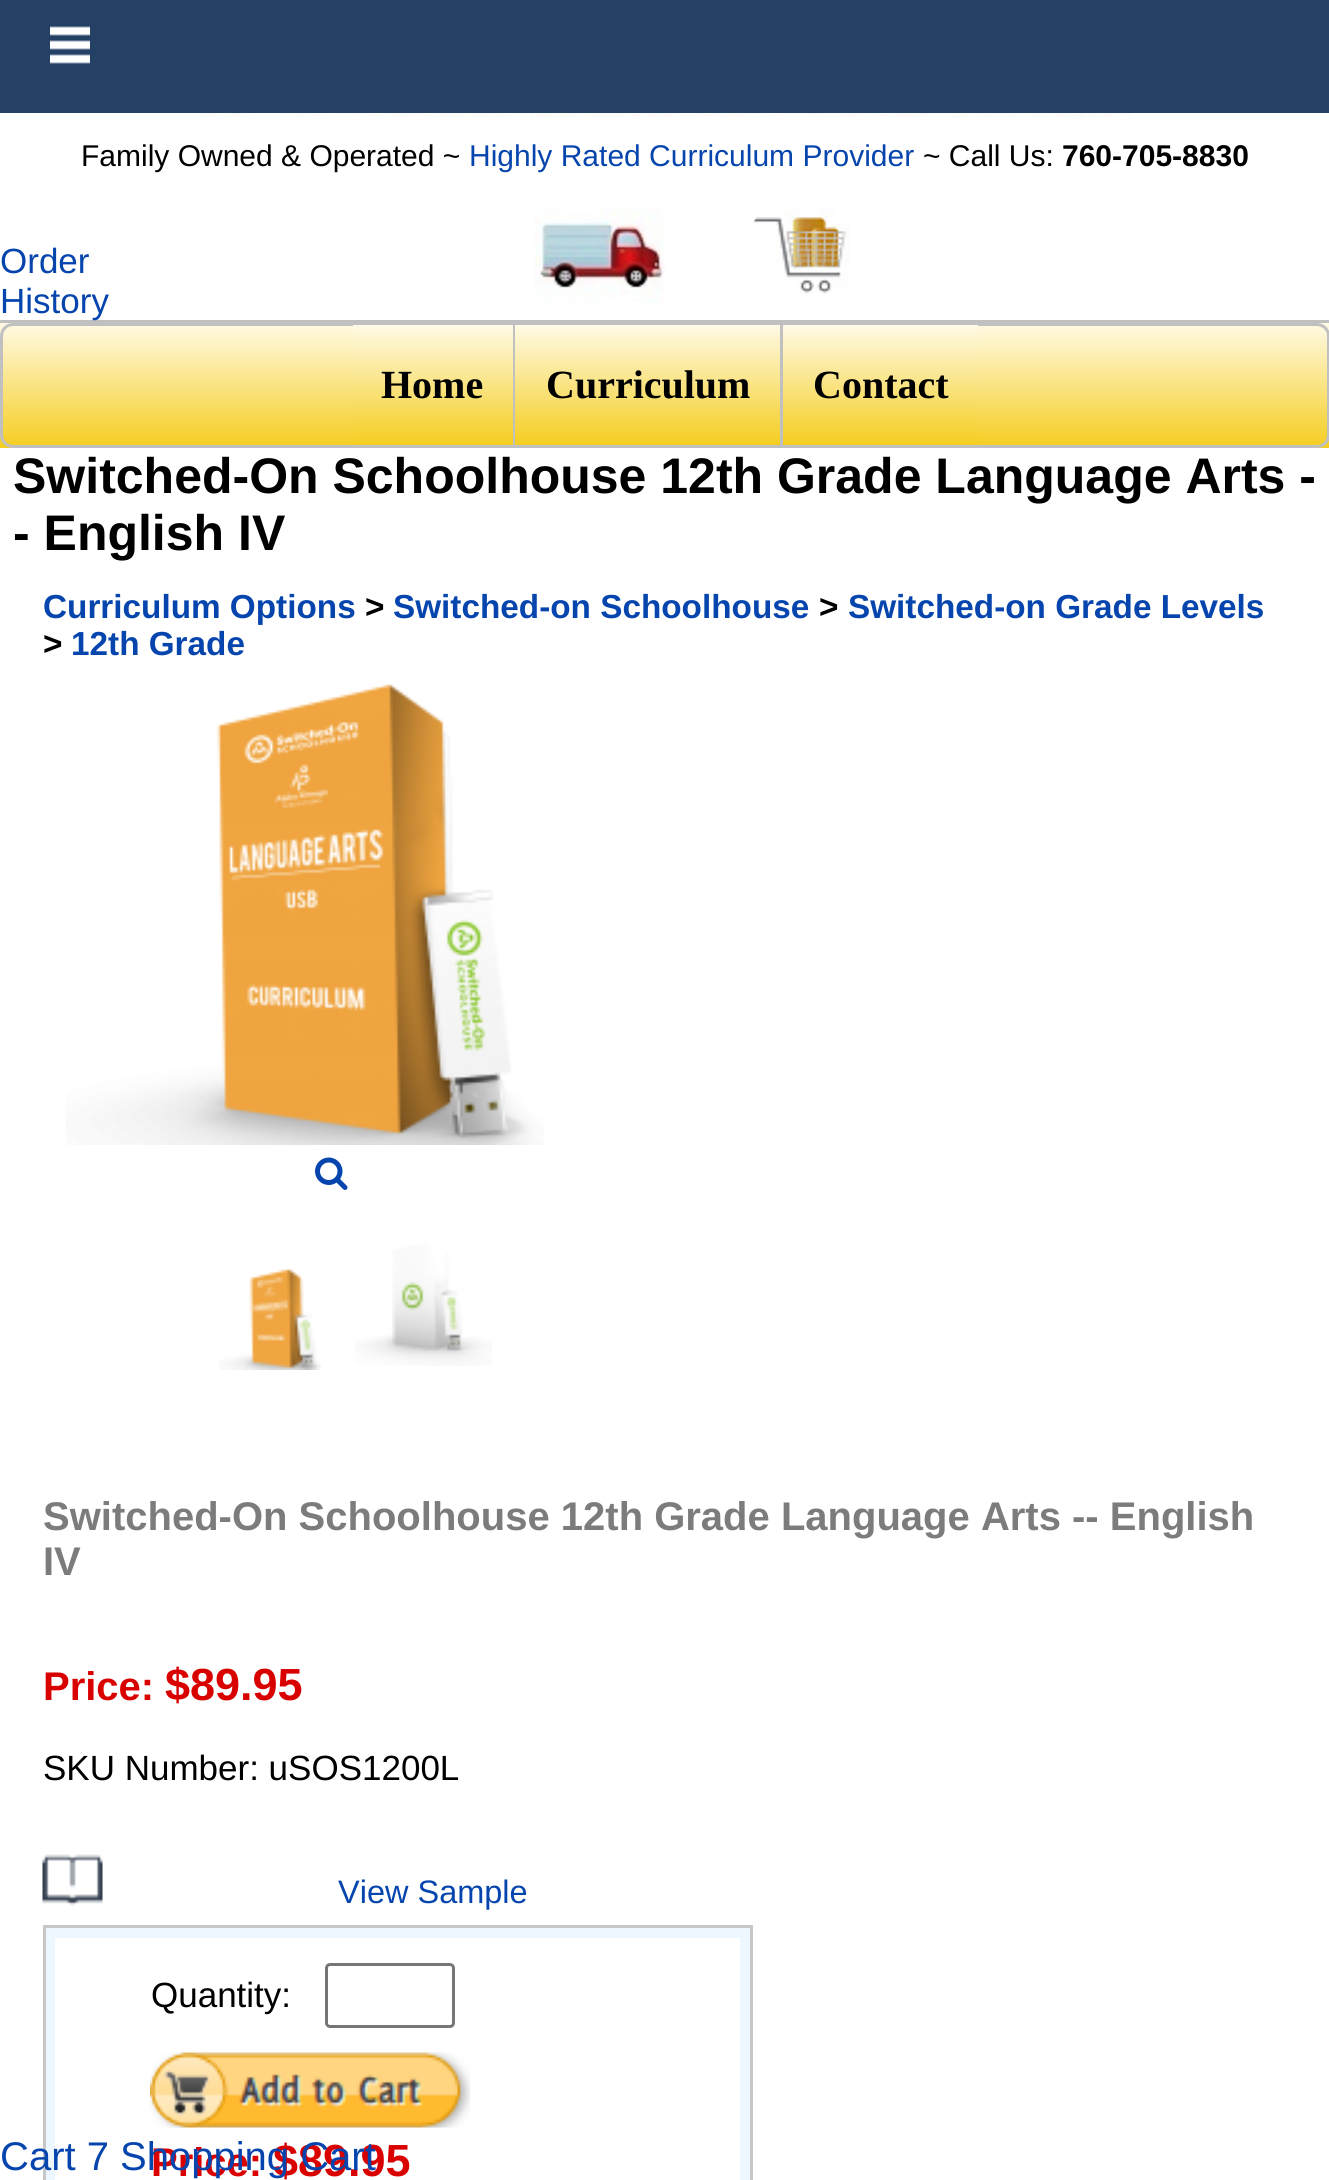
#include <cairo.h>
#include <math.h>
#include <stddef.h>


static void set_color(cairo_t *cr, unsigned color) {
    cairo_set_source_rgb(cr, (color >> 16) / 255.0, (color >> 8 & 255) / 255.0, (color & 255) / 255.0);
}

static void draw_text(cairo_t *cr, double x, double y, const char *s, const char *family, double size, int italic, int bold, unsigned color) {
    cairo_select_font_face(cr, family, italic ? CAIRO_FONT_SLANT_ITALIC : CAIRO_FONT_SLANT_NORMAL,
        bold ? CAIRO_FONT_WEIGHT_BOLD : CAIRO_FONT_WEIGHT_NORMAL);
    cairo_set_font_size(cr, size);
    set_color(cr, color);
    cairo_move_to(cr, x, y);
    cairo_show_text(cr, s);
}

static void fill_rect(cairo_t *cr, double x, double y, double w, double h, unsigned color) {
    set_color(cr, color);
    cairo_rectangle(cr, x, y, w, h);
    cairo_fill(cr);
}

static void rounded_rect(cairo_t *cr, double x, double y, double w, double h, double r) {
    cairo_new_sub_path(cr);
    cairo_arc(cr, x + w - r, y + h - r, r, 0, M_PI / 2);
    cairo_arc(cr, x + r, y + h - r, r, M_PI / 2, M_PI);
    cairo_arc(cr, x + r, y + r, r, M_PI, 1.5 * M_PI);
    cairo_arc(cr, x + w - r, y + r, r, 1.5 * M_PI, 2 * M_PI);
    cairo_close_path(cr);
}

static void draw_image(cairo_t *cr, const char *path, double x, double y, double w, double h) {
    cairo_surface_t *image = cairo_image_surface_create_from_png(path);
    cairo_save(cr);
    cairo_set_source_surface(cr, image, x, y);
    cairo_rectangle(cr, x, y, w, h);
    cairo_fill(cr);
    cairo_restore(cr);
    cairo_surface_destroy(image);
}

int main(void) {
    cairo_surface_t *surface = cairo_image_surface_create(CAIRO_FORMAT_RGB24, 1329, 2180);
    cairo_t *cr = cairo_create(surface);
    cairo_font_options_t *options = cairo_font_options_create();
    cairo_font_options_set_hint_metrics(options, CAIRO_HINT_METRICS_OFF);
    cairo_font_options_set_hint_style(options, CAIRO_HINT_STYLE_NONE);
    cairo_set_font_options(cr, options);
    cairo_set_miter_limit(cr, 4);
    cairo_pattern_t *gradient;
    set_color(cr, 0xFFFFFF);
    cairo_paint(cr);
    fill_rect(cr, 0, 0, 1329, 113, 0x244165);
    draw_image(cr, "assets/img1.png", 50, 26, 40, 38);
    draw_image(cr, "assets/img2.png", 200, 113, 930, 5);
    draw_text(cr, 81, 166, "Family Owned & Operated ~", "Liberation Sans", 30, 0, 0, 0x000000);
    draw_text(cr, 469, 166, "Highly Rated Curriculum Provider", "Liberation Sans", 30, 0, 0, 0x0645AD);
    draw_text(cr, 923, 166, "~ Call Us:", "Liberation Sans", 30, 0, 0, 0x000000);
    draw_text(cr, 1062, 166, "760-705-8830", "Liberation Sans", 30, 0, 1, 0x000000);
    fill_rect(cr, 0, 320, 1329, 3, 0xC0C0C0);
    draw_text(cr, 0, 273, "Order", "Liberation Sans", 35, 0, 0, 0x0645AD);
    draw_text(cr, 0, 313, "History", "Liberation Sans", 35, 0, 0, 0x0645AD);
    draw_image(cr, "assets/img3.png", 535, 207, 130, 96);
    draw_image(cr, "assets/img4.png", 752, 207, 98, 87);
    gradient = cairo_pattern_create_linear(665, 322, 665, 448);
    cairo_pattern_add_color_stop_rgba(gradient, 0, 1, 0.98, 0.902, 1);
    cairo_pattern_add_color_stop_rgba(gradient, 0.99, 0.961, 0.808, 0.133, 1);
    cairo_set_source(cr, gradient);
    cairo_pattern_destroy(gradient);
    cairo_rectangle(cr, 0, 323, 1329, 125);
    cairo_fill(cr);
    rounded_rect(cr, 1.5, 324.5, 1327, 122, 11.5);
    set_color(cr, 0xC0C0C0);
    cairo_set_line_width(cr, 3);
    cairo_stroke(cr);
    gradient = cairo_pattern_create_linear(434, 325, 434, 445);
    cairo_pattern_add_color_stop_rgba(gradient, 0, 1, 0.98, 0.902, 1);
    cairo_pattern_add_color_stop_rgba(gradient, 0.99, 0.961, 0.808, 0.133, 1);
    cairo_set_source(cr, gradient);
    cairo_pattern_destroy(gradient);
    cairo_rectangle(cr, 353, 325, 160, 120);
    cairo_fill(cr);
    fill_rect(cr, 513, 325, 2, 120, 0xC0C0C0);
    draw_text(cr, 381, 398, "Home", "Liberation Serif", 40, 0, 1, 0x000000);
    gradient = cairo_pattern_create_linear(649, 325, 649, 445);
    cairo_pattern_add_color_stop_rgba(gradient, 0, 1, 0.98, 0.902, 1);
    cairo_pattern_add_color_stop_rgba(gradient, 0.99, 0.961, 0.808, 0.133, 1);
    cairo_set_source(cr, gradient);
    cairo_pattern_destroy(gradient);
    cairo_rectangle(cr, 515, 325, 265, 120);
    cairo_fill(cr);
    fill_rect(cr, 780, 325, 3, 120, 0xC0C0C0);
    draw_text(cr, 546, 398, "Curriculum", "Liberation Serif", 40, 0, 1, 0x000000);
    gradient = cairo_pattern_create_linear(880, 325, 880, 445);
    cairo_pattern_add_color_stop_rgba(gradient, 0, 1, 0.98, 0.902, 1);
    cairo_pattern_add_color_stop_rgba(gradient, 0.99, 0.961, 0.808, 0.133, 1);
    cairo_set_source(cr, gradient);
    cairo_pattern_destroy(gradient);
    cairo_rectangle(cr, 783, 325, 195, 120);
    cairo_fill(cr);
    draw_text(cr, 813, 398, "Contact", "Liberation Serif", 40, 0, 1, 0x000000);
    draw_text(cr, 13, 493, "Switched-On Schoolhouse 12th Grade Language Arts -", "Liberation Sans", 50, 0, 1, 0x000000);
    draw_text(cr, 13, 550, "- English IV", "Liberation Sans", 50, 0, 1, 0x000000);
    draw_text(cr, 43, 618, "Curriculum Options", "Liberation Sans", 33.3, 0, 1, 0x0645AD);
    draw_text(cr, 365, 618, ">", "Liberation Sans", 33.3, 0, 1, 0x000000);
    draw_text(cr, 393, 618, "Switched-on Schoolhouse", "Liberation Sans", 33.3, 0, 1, 0x0645AD);
    draw_text(cr, 819, 618, ">", "Liberation Sans", 33.3, 0, 1, 0x000000);
    draw_text(cr, 848, 618, "Switched-on Grade Levels", "Liberation Sans", 33.3, 0, 1, 0x0645AD);
    draw_text(cr, 43, 655, ">", "Liberation Sans", 33.3, 0, 1, 0x000000);
    draw_text(cr, 71, 655, "12th Grade", "Liberation Sans", 33.3, 0, 1, 0x0645AD);
    draw_image(cr, "assets/img5.png", 66, 684, 478, 461);
    draw_image(cr, "assets/img6.png", 315, 1157, 33, 33);
    draw_image(cr, "assets/img7.png", 219, 1268, 102, 102);
    draw_image(cr, "assets/img8.png", 355, 1243, 137, 123);
    draw_text(cr, 43, 1530, "Switched-On Schoolhouse 12th Grade Language Arts -- English", "Liberation Sans", 40, 0, 1, 0x7C7C7C);
    draw_text(cr, 43, 1575, "IV", "Liberation Sans", 40, 0, 1, 0x7C7C7C);
    draw_text(cr, 43, 1700, "Price:", "Liberation Sans", 40, 0, 1, 0xD90000);
    draw_text(cr, 165, 1700, "$89.95", "Liberation Sans", 45, 0, 1, 0xD90000);
    draw_text(cr, 43, 1780, "SKU Number: uSOS1200L", "Liberation Sans", 35, 0, 0, 0x000000);
    draw_image(cr, "assets/img9.png", 42, 1854, 61, 52);
    draw_text(cr, 338, 1903, "View Sample", "Liberation Sans", 32.5, 0, 0, 0x0645AD);
    set_color(cr, 0xEDF7FF);
    cairo_rectangle(cr, 44.5, 1926.5, 707, 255);
    cairo_fill_preserve(cr);
    set_color(cr, 0xC7C7C7);
    cairo_stroke(cr);
    fill_rect(cr, 55, 1938, 685, 242, 0xFFFFFF);
    draw_text(cr, 151, 2007, "Quantity:", "Liberation Sans", 35, 0, 0, 0x000000);
    rounded_rect(cr, 326.5, 1964.5, 127, 62, 3.5);
    set_color(cr, 0x767676);
    cairo_stroke(cr);
    draw_image(cr, "assets/img10.png", 150, 2052, 320, 76);
    draw_text(cr, 151, 2176, "Price:", "Liberation Sans", 40, 0, 1, 0xD90000);
    draw_text(cr, 273, 2176, "$89.95", "Liberation Sans", 45, 0, 1, 0xD90000);
    draw_text(cr, 0, 2170, "Cart 7 Shopping Cart", "Liberation Sans", 40, 0, 0, 0x0645AD);
    cairo_surface_write_to_png(surface, "output.png");
    cairo_font_options_destroy(options);
    cairo_destroy(cr);
    cairo_surface_destroy(surface);
    return 0;
}
